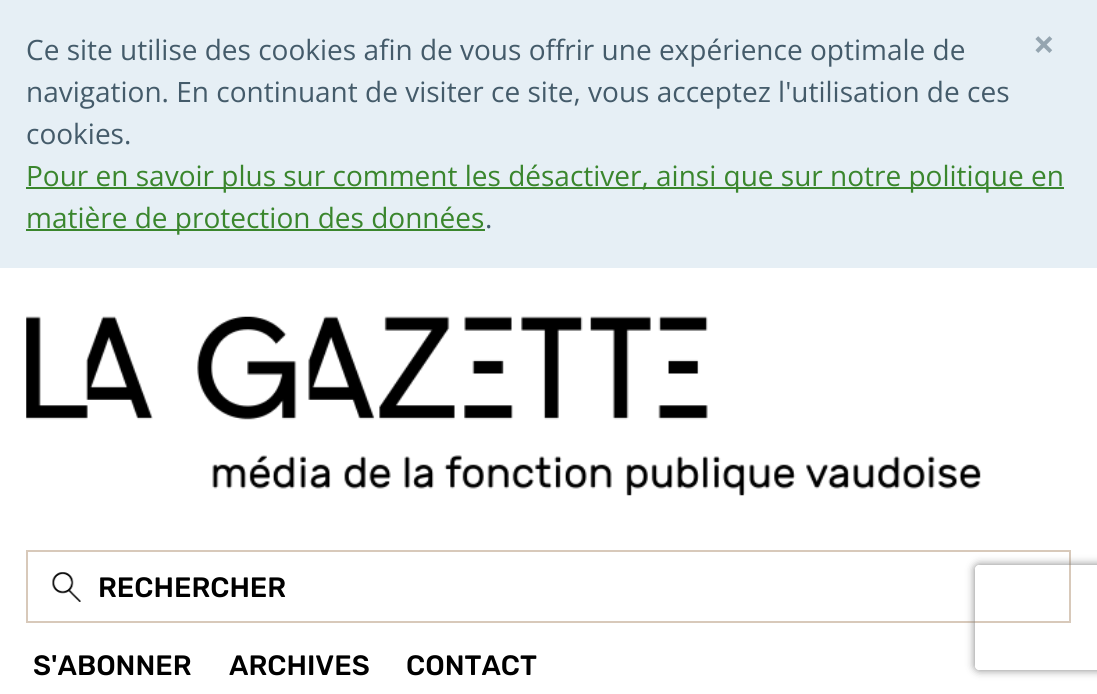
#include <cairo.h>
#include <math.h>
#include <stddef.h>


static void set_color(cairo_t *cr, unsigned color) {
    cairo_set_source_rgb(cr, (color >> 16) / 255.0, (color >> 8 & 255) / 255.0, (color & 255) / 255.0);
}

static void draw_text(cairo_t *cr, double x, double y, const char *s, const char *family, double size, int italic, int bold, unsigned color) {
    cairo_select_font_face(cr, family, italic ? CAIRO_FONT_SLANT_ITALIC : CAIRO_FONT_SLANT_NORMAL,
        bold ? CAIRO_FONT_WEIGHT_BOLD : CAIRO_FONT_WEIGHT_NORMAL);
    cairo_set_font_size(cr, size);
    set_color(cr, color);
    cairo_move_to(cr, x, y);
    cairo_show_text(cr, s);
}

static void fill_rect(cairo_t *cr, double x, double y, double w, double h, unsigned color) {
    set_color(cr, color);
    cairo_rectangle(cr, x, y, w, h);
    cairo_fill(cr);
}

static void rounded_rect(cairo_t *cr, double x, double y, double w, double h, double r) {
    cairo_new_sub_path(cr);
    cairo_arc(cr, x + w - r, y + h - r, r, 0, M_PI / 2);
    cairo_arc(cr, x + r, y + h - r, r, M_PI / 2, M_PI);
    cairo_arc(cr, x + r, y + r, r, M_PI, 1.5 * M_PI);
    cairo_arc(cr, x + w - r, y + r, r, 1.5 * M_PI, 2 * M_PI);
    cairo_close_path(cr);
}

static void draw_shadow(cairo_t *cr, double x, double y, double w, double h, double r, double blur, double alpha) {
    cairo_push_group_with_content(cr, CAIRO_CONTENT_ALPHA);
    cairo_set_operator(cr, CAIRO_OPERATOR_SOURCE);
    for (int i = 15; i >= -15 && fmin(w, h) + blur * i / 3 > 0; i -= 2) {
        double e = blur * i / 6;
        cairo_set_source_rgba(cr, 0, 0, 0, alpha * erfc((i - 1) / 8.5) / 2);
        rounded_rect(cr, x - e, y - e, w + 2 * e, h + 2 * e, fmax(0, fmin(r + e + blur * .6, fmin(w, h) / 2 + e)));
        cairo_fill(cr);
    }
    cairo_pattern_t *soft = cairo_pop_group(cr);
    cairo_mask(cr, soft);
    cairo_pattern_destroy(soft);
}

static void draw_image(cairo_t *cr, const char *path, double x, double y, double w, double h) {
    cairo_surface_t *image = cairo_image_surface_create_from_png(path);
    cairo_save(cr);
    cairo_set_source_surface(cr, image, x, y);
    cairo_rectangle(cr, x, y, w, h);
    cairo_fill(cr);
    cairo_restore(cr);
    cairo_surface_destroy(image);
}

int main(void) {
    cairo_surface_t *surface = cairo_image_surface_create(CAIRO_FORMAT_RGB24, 1097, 694);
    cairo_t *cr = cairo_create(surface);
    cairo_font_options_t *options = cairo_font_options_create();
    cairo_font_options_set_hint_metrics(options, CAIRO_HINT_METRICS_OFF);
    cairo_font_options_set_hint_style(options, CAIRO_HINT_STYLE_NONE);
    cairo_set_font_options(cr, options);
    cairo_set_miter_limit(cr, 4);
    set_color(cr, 0xFFFFFF);
    cairo_paint(cr);
    fill_rect(cr, 0, 0, 1097, 268, 0xE6EFF5);
    draw_text(cr, 1033, 58, "×", "Open Sans", 38, 0, 1, 0x95A5B0);
    draw_text(cr, 26, 60, "Ce site utilise des cookies afin de vous offrir une expérience optimale de", "Open Sans", 28, 0, 0, 0x445B6A);
    draw_text(cr, 26, 102, "navigation. En continuant de visiter ce site, vous acceptez l'utilisation de ces", "Open Sans", 28, 0, 0, 0x445B6A);
    draw_text(cr, 26, 144, "cookies.", "Open Sans", 28, 0, 0, 0x445B6A);
    fill_rect(cr, 26, 187, 1038, 2, 0x3A862D);
    draw_text(cr, 26, 186, "Pour en savoir plus sur comment les désactiver, ainsi que sur notre politique en", "Open Sans", 28, 0, 0, 0x3A862D);
    fill_rect(cr, 26, 229, 459, 2, 0x3A862D);
    draw_text(cr, 26, 228, "matière de protection des données", "Open Sans", 28, 0, 0, 0x3A862D);
    draw_text(cr, 485, 228, ".", "Open Sans", 28, 0, 0, 0x445B6A);
    draw_image(cr, "assets/img1.png", 26, 316, 955, 180);
    draw_image(cr, "assets/img2.png", 52, 572, 29, 30);
    cairo_rectangle(cr, 27, 551, 1043, 71);
    set_color(cr, 0xD8C9BA);
    cairo_stroke(cr);
    draw_text(cr, 98, 597, "RECHERCHER", "Rubik Medium", 28, 0, 0, 0x000000);
    draw_text(cr, 33, 675, "S'ABONNER", "Rubik Medium", 28, 0, 0, 0x000000);
    draw_text(cr, 229, 675, "ARCHIVES", "Rubik Medium", 28, 0, 0, 0x000000);
    draw_text(cr, 406, 675, "CONTACT", "Rubik Medium", 28, 0, 0, 0x000000);
    cairo_save(cr);
    cairo_set_fill_rule(cr, CAIRO_FILL_RULE_EVEN_ODD);
    cairo_new_path(cr);
    cairo_move_to(cr, 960, 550);
    cairo_line_to(cr, 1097, 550);
    cairo_line_to(cr, 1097, 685);
    cairo_line_to(cr, 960, 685);
    cairo_close_path(cr);
    cairo_move_to(cr, 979, 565);
    cairo_line_to(cr, 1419, 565);
    cairo_curve_to(cr, 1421, 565, 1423, 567, 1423, 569);
    cairo_line_to(cr, 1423, 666);
    cairo_curve_to(cr, 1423, 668, 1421, 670, 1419, 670);
    cairo_line_to(cr, 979, 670);
    cairo_curve_to(cr, 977, 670, 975, 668, 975, 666);
    cairo_line_to(cr, 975, 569);
    cairo_curve_to(cr, 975, 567, 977, 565, 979, 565);
    cairo_close_path(cr);
    cairo_clip(cr);
    set_color(cr, 0x808080);
    draw_shadow(cr, 975, 565, 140, 105, 4, 4.5, 1);
    cairo_restore(cr);
    cairo_surface_write_to_png(surface, "output.png");
    cairo_font_options_destroy(options);
    cairo_destroy(cr);
    cairo_surface_destroy(surface);
    return 0;
}
